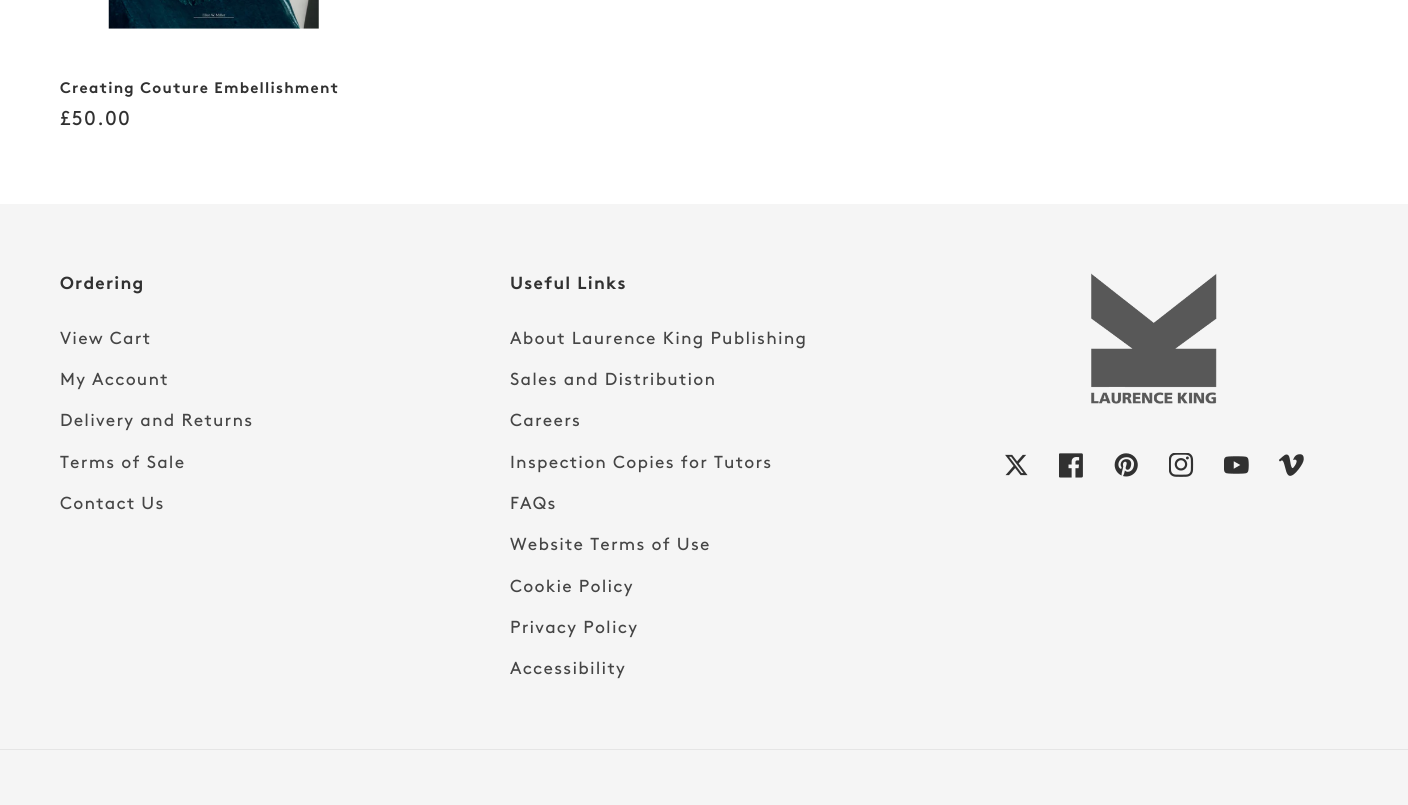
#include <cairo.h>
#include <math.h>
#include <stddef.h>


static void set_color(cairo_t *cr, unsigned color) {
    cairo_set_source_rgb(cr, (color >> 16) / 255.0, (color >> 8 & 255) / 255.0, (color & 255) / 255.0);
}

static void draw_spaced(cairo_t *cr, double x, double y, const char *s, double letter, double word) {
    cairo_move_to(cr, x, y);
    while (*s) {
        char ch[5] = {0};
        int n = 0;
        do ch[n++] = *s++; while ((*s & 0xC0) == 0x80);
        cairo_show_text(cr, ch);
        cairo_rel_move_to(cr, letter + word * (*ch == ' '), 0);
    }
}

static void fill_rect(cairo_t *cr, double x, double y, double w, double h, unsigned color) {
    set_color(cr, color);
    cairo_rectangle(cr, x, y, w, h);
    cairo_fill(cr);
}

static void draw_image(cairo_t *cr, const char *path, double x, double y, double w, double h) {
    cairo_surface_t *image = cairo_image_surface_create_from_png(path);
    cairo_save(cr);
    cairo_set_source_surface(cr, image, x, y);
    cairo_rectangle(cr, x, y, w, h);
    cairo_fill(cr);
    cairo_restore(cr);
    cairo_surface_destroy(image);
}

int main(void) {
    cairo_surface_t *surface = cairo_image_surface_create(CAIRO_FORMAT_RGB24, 1408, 805);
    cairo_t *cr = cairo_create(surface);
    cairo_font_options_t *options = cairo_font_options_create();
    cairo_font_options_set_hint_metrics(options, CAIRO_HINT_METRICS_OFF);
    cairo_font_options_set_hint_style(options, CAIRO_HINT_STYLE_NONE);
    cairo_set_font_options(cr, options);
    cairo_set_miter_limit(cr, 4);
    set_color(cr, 0xFFFFFF);
    cairo_paint(cr);
    draw_image(cr, "assets/img1.png", 108, 0, 211, 29);
    cairo_select_font_face(cr, "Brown", CAIRO_FONT_SLANT_NORMAL, CAIRO_FONT_WEIGHT_BOLD);
    cairo_set_font_size(cr, 15.25);
    set_color(cr, 0x313131);
    draw_spaced(cr, 60, 93, "Creating Couture Embellishment", 1.2, 0);
    cairo_select_font_face(cr, "Brown", CAIRO_FONT_SLANT_NORMAL, CAIRO_FONT_WEIGHT_NORMAL);
    cairo_set_font_size(cr, 20);
    draw_spaced(cr, 60, 125, "£50.00", 1.2, 0);
    fill_rect(cr, 0, 204, 1408, 601, 0xF5F5F5);
    cairo_select_font_face(cr, "Brown", CAIRO_FONT_SLANT_NORMAL, CAIRO_FONT_WEIGHT_BOLD);
    cairo_set_font_size(cr, 17.5);
    set_color(cr, 0x313131);
    draw_spaced(cr, 60, 289, "Ordering", 1.2, 0);
    cairo_select_font_face(cr, "Brown", CAIRO_FONT_SLANT_NORMAL, CAIRO_FONT_WEIGHT_NORMAL);
    cairo_set_font_size(cr, 17.4);
    set_color(cr, 0x454545);
    draw_spaced(cr, 60, 344, "View Cart", 1.2, 0);
    draw_spaced(cr, 60, 385, "My Account", 1.2, 0);
    draw_spaced(cr, 60, 426, "Delivery and Returns", 1.2, 0);
    draw_spaced(cr, 60, 468, "Terms of Sale", 1.2, 0);
    draw_spaced(cr, 60, 509, "Contact Us", 1.2, 0);
    cairo_select_font_face(cr, "Brown", CAIRO_FONT_SLANT_NORMAL, CAIRO_FONT_WEIGHT_BOLD);
    cairo_set_font_size(cr, 17.5);
    set_color(cr, 0x313131);
    draw_spaced(cr, 510, 289, "Useful Links", 1.2, 0);
    cairo_select_font_face(cr, "Brown", CAIRO_FONT_SLANT_NORMAL, CAIRO_FONT_WEIGHT_NORMAL);
    cairo_set_font_size(cr, 17.4);
    set_color(cr, 0x454545);
    draw_spaced(cr, 510, 344, "About Laurence King Publishing", 1.2, 0);
    draw_spaced(cr, 510, 385, "Sales and Distribution", 1.2, 0);
    draw_spaced(cr, 510, 426, "Careers", 1.2, 0);
    draw_spaced(cr, 510, 468, "Inspection Copies for Tutors", 1.2, 0);
    draw_spaced(cr, 510, 509, "FAQs", 1.2, 0);
    draw_spaced(cr, 510, 550, "Website Terms of Use", 1.2, 0);
    draw_spaced(cr, 510, 592, "Cookie Policy", 1.2, 0);
    draw_spaced(cr, 510, 633, "Privacy Policy", 1.2, 0);
    draw_spaced(cr, 510, 674, "Accessibility", 1.2, 0);
    draw_image(cr, "assets/img2.png", 1091, 273, 126, 131);
    draw_image(cr, "assets/img3.png", 1005, 454, 23, 22);
    draw_image(cr, "assets/img4.png", 1059, 453, 24, 25);
    draw_image(cr, "assets/img5.png", 1114, 453, 24, 24);
    draw_image(cr, "assets/img6.png", 1169, 453, 25, 24);
    draw_image(cr, "assets/img7.png", 1224, 456, 25, 18);
    draw_image(cr, "assets/img8.png", 1279, 454, 25, 22);
    fill_rect(cr, 0, 749, 1408, 1, 0xE5E5E5);
    cairo_surface_write_to_png(surface, "output.png");
    cairo_font_options_destroy(options);
    cairo_destroy(cr);
    cairo_surface_destroy(surface);
    return 0;
}
